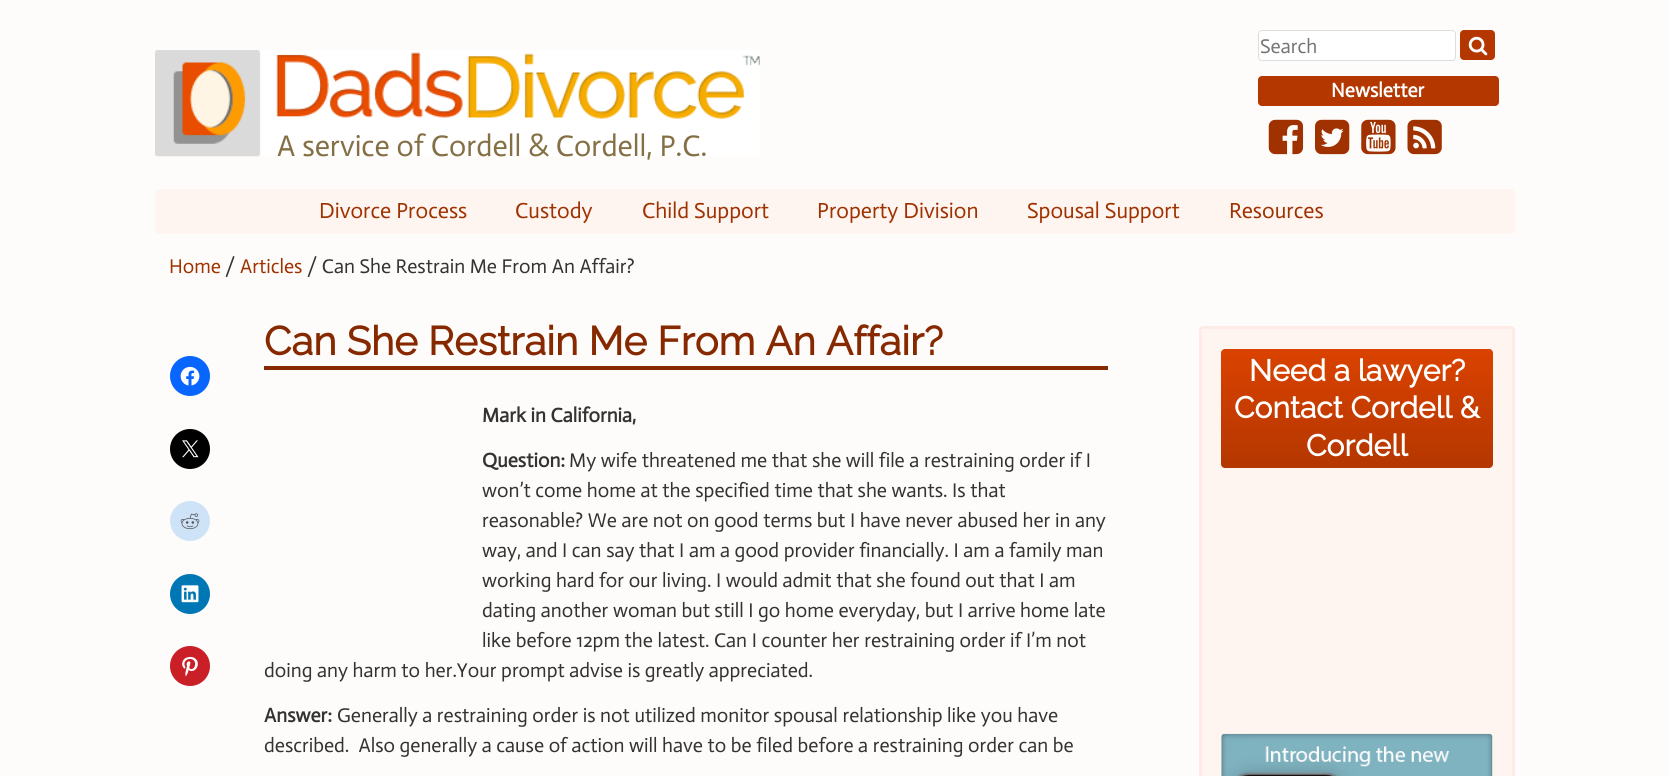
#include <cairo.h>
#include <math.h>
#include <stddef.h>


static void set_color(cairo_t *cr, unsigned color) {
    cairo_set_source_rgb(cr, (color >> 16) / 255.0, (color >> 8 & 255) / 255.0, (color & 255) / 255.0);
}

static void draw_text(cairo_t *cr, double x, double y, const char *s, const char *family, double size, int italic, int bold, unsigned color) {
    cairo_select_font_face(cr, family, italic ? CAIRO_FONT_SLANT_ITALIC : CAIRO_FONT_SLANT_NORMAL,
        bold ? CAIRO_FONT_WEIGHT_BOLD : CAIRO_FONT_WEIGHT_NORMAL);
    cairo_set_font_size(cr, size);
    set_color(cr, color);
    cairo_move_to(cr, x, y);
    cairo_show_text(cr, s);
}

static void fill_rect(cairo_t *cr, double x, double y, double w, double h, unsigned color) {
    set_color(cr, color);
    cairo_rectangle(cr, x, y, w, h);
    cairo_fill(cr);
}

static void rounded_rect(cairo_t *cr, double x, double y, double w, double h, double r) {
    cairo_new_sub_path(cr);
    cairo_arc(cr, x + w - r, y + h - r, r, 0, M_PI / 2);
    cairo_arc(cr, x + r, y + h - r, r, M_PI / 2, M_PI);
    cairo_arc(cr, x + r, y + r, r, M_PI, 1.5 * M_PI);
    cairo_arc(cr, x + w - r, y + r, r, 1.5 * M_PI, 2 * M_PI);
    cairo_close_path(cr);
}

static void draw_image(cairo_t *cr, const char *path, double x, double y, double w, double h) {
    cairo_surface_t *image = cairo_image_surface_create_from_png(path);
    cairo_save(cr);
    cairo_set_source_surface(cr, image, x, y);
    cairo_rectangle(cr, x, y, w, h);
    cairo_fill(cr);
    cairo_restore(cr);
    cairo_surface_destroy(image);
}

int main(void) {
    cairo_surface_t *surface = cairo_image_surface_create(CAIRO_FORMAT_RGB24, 1670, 776);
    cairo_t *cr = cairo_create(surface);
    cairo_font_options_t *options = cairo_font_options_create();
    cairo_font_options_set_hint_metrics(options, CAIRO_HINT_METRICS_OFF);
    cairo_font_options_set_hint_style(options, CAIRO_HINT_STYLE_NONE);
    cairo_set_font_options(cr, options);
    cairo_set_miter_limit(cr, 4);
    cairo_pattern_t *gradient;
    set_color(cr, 0xFEFCFA);
    cairo_paint(cr);
    set_color(cr, 0xFFFFFF);
    rounded_rect(cr, 1258.5, 30.5, 197, 30, 3.5);
    cairo_fill_preserve(cr);
    set_color(cr, 0xDDDDDD);
    cairo_set_line_width(cr, 1);
    cairo_stroke(cr);
    draw_text(cr, 1260, 53, "Search", "Actor", 20, 0, 0, 0x757575);
    set_color(cr, 0xB43700);
    rounded_rect(cr, 1460, 30, 35, 30, 4);
    cairo_fill(cr);
    draw_image(cr, "assets/img1.png", 1468, 36, 20, 20);
    rounded_rect(cr, 1258, 76, 241, 30, 4);
    cairo_fill(cr);
    draw_text(cr, 1331, 97, "Newsletter", "Actor", 20, 0, 1, 0xFFFFFF);
    draw_image(cr, "assets/img2.png", 1268, 119, 36, 36);
    draw_image(cr, "assets/img3.png", 1315, 119, 35, 36);
    draw_image(cr, "assets/img4.png", 1361, 119, 35, 36);
    draw_image(cr, "assets/img5.png", 1407, 119, 35, 36);
    draw_image(cr, "assets/img6.png", 155, 50, 605, 107);
    draw_text(cr, 277, 156, "A service of Cordell & Cordell, P.C.", "Actor", 30, 0, 0, 0x857045);
    set_color(cr, 0xFEF5F1);
    rounded_rect(cr, 155, 189, 1360, 45, 4);
    cairo_fill(cr);
    draw_text(cr, 319, 218, "Divorce Process", "Actor", 22, 0, 0, 0x9F3200);
    draw_text(cr, 515, 218, "Custody", "Actor", 22, 0, 0, 0x9F3200);
    draw_text(cr, 642, 218, "Child Support", "Actor", 22, 0, 0, 0x9F3200);
    draw_text(cr, 817, 218, "Property Division", "Actor", 22, 0, 0, 0x9F3200);
    draw_text(cr, 1027, 218, "Spousal Support", "Actor", 22, 0, 0, 0x9F3200);
    draw_text(cr, 1229, 218, "Resources", "Actor", 22, 0, 0, 0x9F3200);
    draw_text(cr, 169, 273, "Home", "Actor", 20, 0, 0, 0x9F3200);
    draw_text(cr, 225, 273, "/", "Actor", 20, 0, 0, 0x333333);
    draw_text(cr, 240, 273, "Articles", "Actor", 20, 0, 0, 0x9F3200);
    draw_text(cr, 307, 273, "/ Can She Restrain Me From An Affair?", "Actor", 20, 0, 0, 0x333333);
    set_color(cr, 0x0866FF);
    cairo_new_path(cr);
    cairo_arc(cr, 190, 376, 20, 0, 2 * M_PI);
    cairo_fill(cr);
    draw_image(cr, "assets/img7.png", 180, 366, 20, 20);
    set_color(cr, 0x000000);
    cairo_arc(cr, 190, 449, 20, 0, 2 * M_PI);
    cairo_fill(cr);
    draw_image(cr, "assets/img8.png", 182, 440, 17, 18);
    set_color(cr, 0xCEE3F8);
    cairo_arc(cr, 190, 521, 20, 0, 2 * M_PI);
    cairo_fill(cr);
    draw_image(cr, "assets/img9.png", 180, 513, 20, 17);
    set_color(cr, 0x0077B5);
    cairo_arc(cr, 190, 594, 20, 0, 2 * M_PI);
    cairo_fill(cr);
    draw_image(cr, "assets/img10.png", 181, 585, 18, 18);
    set_color(cr, 0xCA1F27);
    cairo_arc(cr, 190, 666, 20, 0, 2 * M_PI);
    cairo_fill(cr);
    draw_image(cr, "assets/img11.png", 182, 656, 16, 21);
    fill_rect(cr, 264, 366, 844, 4, 0x862900);
    draw_text(cr, 264, 355, "Can She Restrain Me From An Affair?", "Raleway", 40, 0, 1, 0x862900);
    draw_text(cr, 482, 422, "Mark in California,", "Actor", 20, 0, 1, 0x333333);
    draw_text(cr, 482, 467, "Question:", "Actor", 20, 0, 1, 0x333333);
    draw_text(cr, 569, 467, "My wife threatened me that she will file a restraining order if I", "Actor", 20, 0, 0, 0x333333);
    draw_text(cr, 482, 497, "won’t come home at the specified time that she wants. Is that", "Actor", 20, 0, 0, 0x333333);
    draw_text(cr, 482, 527, "reasonable? We are not on good terms but I have never abused her in any", "Actor", 20, 0, 0, 0x333333);
    draw_text(cr, 482, 557, "way, and I can say that I am a good provider financially. I am a family man", "Actor", 20, 0, 0, 0x333333);
    draw_text(cr, 482, 587, "working hard for our living. I would admit that she found out that I am", "Actor", 20, 0, 0, 0x333333);
    draw_text(cr, 482, 617, "dating another woman but still I go home everyday, but I arrive home late", "Actor", 20, 0, 0, 0x333333);
    draw_text(cr, 482, 647, "like before 12pm the latest. Can I counter her restraining order if I’m not", "Actor", 20, 0, 0, 0x333333);
    draw_text(cr, 264, 677, "doing any harm to her.Your prompt advise is greatly appreciated.", "Actor", 20, 0, 0, 0x333333);
    draw_text(cr, 264, 722, "Answer:", "Actor", 20, 0, 1, 0x333333);
    draw_text(cr, 337, 722, "Generally a restraining order is not utilized monitor spousal relationship like you have", "Actor", 20, 0, 0, 0x333333);
    draw_text(cr, 264, 752, "described.  Also generally a cause of action will have to be filed before a restraining order can be", "Actor", 20, 0, 0, 0x333333);
    set_color(cr, 0xFEF5F1);
    rounded_rect(cr, 1200.5, 327.5, 313, 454, 2.5);
    cairo_fill_preserve(cr);
    set_color(cr, 0xFFEBE6);
    cairo_set_line_width(cr, 3);
    cairo_stroke(cr);
    gradient = cairo_pattern_create_linear(1357, 349, 1357, 468);
    cairo_pattern_add_color_stop_rgba(gradient, 0, 0.855, 0.259, 0, 1);
    cairo_pattern_add_color_stop_rgba(gradient, 1, 0.706, 0.216, 0, 1);
    cairo_set_source(cr, gradient);
    cairo_pattern_destroy(gradient);
    rounded_rect(cr, 1221, 349, 272, 119, 4);
    cairo_fill(cr);
    draw_text(cr, 1249, 381, "Need a lawyer?", "Raleway", 30, 0, 1, 0xFFFFFF);
    draw_text(cr, 1234, 418, "Contact Cordell &", "Raleway", 30, 0, 1, 0xFFFFFF);
    draw_text(cr, 1306, 456, "Cordell", "Raleway", 30, 0, 1, 0xFFFFFF);
    draw_image(cr, "assets/img12.png", 1221, 733, 272, 43);
    cairo_surface_write_to_png(surface, "output.png");
    cairo_font_options_destroy(options);
    cairo_destroy(cr);
    cairo_surface_destroy(surface);
    return 0;
}
